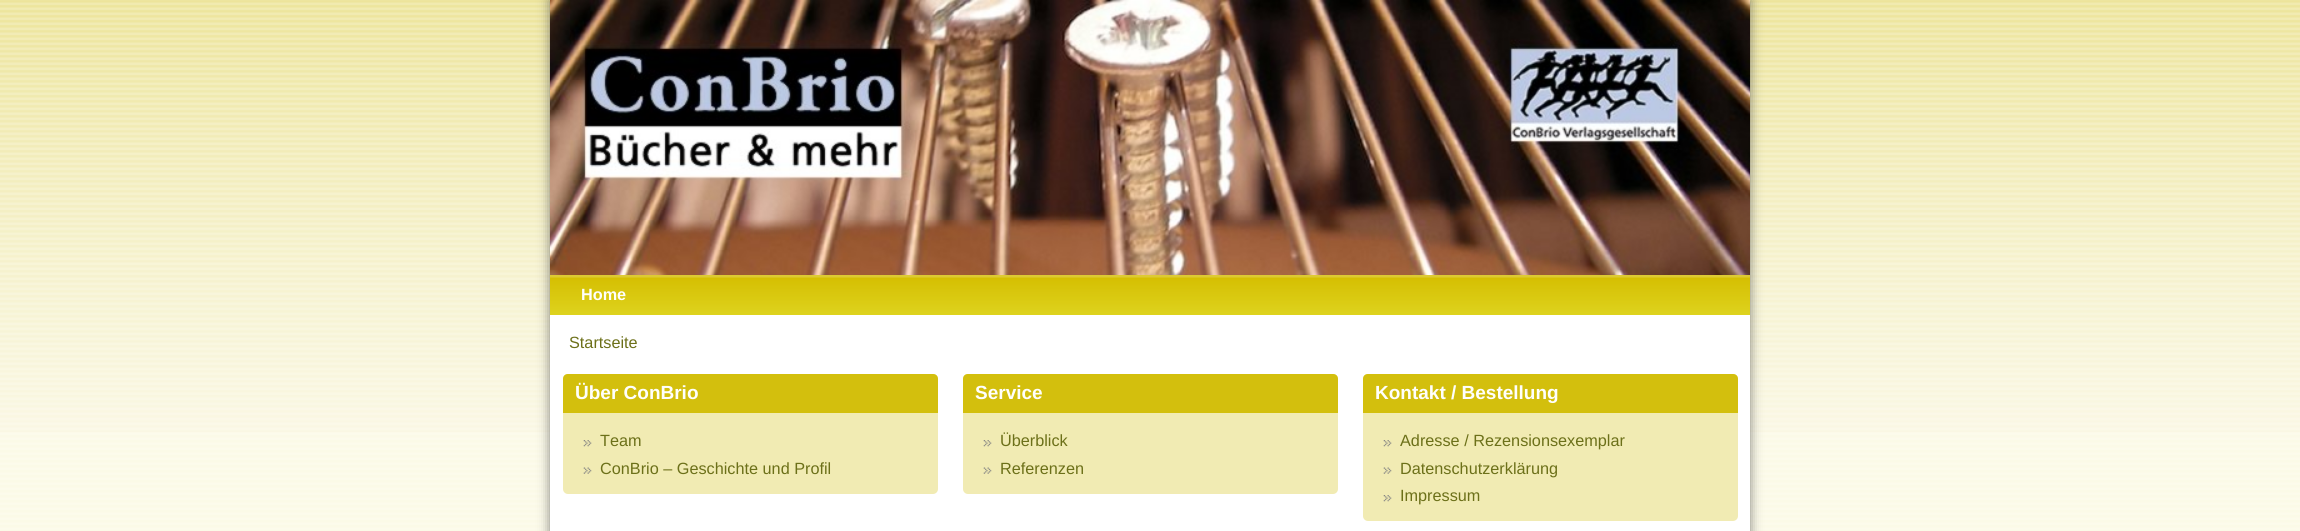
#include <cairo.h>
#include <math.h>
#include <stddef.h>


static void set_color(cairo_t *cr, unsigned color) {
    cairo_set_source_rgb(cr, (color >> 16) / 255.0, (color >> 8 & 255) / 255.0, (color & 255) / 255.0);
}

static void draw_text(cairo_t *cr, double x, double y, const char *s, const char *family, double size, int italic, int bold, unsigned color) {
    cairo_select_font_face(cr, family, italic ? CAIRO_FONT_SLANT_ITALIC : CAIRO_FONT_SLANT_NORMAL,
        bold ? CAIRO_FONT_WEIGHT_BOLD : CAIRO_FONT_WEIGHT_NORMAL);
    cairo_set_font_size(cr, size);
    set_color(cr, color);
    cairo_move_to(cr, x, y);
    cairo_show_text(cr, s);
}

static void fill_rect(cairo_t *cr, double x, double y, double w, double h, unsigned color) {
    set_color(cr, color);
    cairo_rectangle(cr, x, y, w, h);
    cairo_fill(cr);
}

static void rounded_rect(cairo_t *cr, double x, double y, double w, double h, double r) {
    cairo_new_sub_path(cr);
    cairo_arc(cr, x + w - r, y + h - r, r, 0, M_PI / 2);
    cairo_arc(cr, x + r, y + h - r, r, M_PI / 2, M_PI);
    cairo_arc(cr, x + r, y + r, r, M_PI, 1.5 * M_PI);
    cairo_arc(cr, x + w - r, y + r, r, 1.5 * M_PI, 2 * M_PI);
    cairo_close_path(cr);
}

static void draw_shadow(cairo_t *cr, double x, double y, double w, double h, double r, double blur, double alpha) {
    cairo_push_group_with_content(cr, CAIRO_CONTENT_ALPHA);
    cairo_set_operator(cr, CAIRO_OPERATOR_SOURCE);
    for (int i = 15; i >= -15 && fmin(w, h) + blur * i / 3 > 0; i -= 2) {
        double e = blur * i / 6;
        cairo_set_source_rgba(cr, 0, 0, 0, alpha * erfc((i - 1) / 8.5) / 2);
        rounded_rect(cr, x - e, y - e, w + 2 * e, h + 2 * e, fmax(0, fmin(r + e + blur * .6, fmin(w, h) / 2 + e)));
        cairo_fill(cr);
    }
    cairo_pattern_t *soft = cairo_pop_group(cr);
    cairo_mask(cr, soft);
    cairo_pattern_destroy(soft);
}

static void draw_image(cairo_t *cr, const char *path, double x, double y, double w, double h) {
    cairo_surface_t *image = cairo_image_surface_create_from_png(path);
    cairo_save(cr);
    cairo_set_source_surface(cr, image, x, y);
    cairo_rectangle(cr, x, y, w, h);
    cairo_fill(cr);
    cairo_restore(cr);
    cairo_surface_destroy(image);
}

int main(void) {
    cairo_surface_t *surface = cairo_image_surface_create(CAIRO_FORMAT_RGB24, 2300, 531);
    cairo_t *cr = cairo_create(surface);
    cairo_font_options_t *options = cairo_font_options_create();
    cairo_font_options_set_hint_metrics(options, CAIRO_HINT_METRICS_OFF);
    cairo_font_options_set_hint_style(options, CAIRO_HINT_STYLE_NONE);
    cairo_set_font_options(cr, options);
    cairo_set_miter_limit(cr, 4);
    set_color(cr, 0xFAF8DF);
    cairo_paint(cr);
    draw_image(cr, "assets/img1.png", 0, 0, 2300, 432);
    draw_image(cr, "assets/img2.png", 0, 0, 2300, 531);
    set_color(cr, 0x4C4C4C);
    draw_shadow(cr, 550, 0, 1200, 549, 0, 6, 0.7);
    fill_rect(cr, 550, 315, 1200, 216, 0xFFFFFF);
    draw_image(cr, "assets/img3.png", 550, 0, 1200, 275);
    draw_image(cr, "assets/img4.png", 550, 275, 1200, 40);
    draw_text(cr, 581, 300, "Home", "Liberation Sans", 16.25, 0, 1, 0xFFFFFC);
    draw_text(cr, 569, 348, "Startseite", "Liberation Sans", 16.25, 0, 0, 0x6C7019);
    set_color(cr, 0xF1EBB3);
    rounded_rect(cr, 563, 374, 375, 120, 5);
    cairo_fill(cr);
    set_color(cr, 0xD3BF0D);
    cairo_new_path(cr);
    cairo_move_to(cr, 568, 374);
    cairo_line_to(cr, 933, 374);
    cairo_curve_to(cr, 936, 374, 938, 376, 938, 379);
    cairo_line_to(cr, 938, 413);
    cairo_line_to(cr, 563, 413);
    cairo_line_to(cr, 563, 379);
    cairo_curve_to(cr, 563, 376, 565, 374, 568, 374);
    cairo_close_path(cr);
    cairo_fill(cr);
    draw_text(cr, 575, 399, "Über ConBrio", "Liberation Sans", 19, 0, 1, 0xFFFFFC);
    draw_image(cr, "assets/img5.png", 583, 440, 9, 7);
    draw_text(cr, 600, 446, "Team", "Liberation Sans", 16.25, 0, 0, 0x6C7019);
    draw_image(cr, "assets/img6.png", 583, 467, 9, 7);
    draw_text(cr, 600, 474, "ConBrio – Geschichte und Profil", "Liberation Sans", 16.25, 0, 0, 0x6C7019);
    set_color(cr, 0xF1EBB3);
    rounded_rect(cr, 963, 374, 375, 120, 5);
    cairo_fill(cr);
    set_color(cr, 0xD3BF0D);
    cairo_new_path(cr);
    cairo_move_to(cr, 968, 374);
    cairo_line_to(cr, 1333, 374);
    cairo_curve_to(cr, 1336, 374, 1338, 376, 1338, 379);
    cairo_line_to(cr, 1338, 413);
    cairo_line_to(cr, 963, 413);
    cairo_line_to(cr, 963, 379);
    cairo_curve_to(cr, 963, 376, 965, 374, 968, 374);
    cairo_close_path(cr);
    cairo_fill(cr);
    draw_text(cr, 975, 399, "Service", "Liberation Sans", 19, 0, 1, 0xFFFFFC);
    draw_image(cr, "assets/img5.png", 983, 440, 9, 7);
    draw_text(cr, 1000, 446, "Überblick", "Liberation Sans", 16.25, 0, 0, 0x6C7019);
    draw_image(cr, "assets/img6.png", 983, 467, 9, 7);
    draw_text(cr, 1000, 474, "Referenzen", "Liberation Sans", 16.25, 0, 0, 0x6C7019);
    set_color(cr, 0xF1EBB3);
    rounded_rect(cr, 1363, 374, 375, 147, 5);
    cairo_fill(cr);
    set_color(cr, 0xD3BF0D);
    cairo_new_path(cr);
    cairo_move_to(cr, 1368, 374);
    cairo_line_to(cr, 1733, 374);
    cairo_curve_to(cr, 1736, 374, 1738, 376, 1738, 379);
    cairo_line_to(cr, 1738, 413);
    cairo_line_to(cr, 1363, 413);
    cairo_line_to(cr, 1363, 379);
    cairo_curve_to(cr, 1363, 376, 1365, 374, 1368, 374);
    cairo_close_path(cr);
    cairo_fill(cr);
    draw_text(cr, 1375, 399, "Kontakt / Bestellung", "Liberation Sans", 19, 0, 1, 0xFFFFFC);
    draw_image(cr, "assets/img5.png", 1383, 440, 9, 7);
    draw_text(cr, 1400, 446, "Adresse / Rezensionsexemplar", "Liberation Sans", 16.25, 0, 0, 0x6C7019);
    draw_image(cr, "assets/img6.png", 1383, 467, 9, 7);
    draw_text(cr, 1400, 474, "Datenschutzerklärung", "Liberation Sans", 16.25, 0, 0, 0x6C7019);
    draw_image(cr, "assets/img5.png", 1383, 495, 9, 7);
    draw_text(cr, 1400, 501, "Impressum", "Liberation Sans", 16.25, 0, 0, 0x6C7019);
    cairo_surface_write_to_png(surface, "output.png");
    cairo_font_options_destroy(options);
    cairo_destroy(cr);
    cairo_surface_destroy(surface);
    return 0;
}
